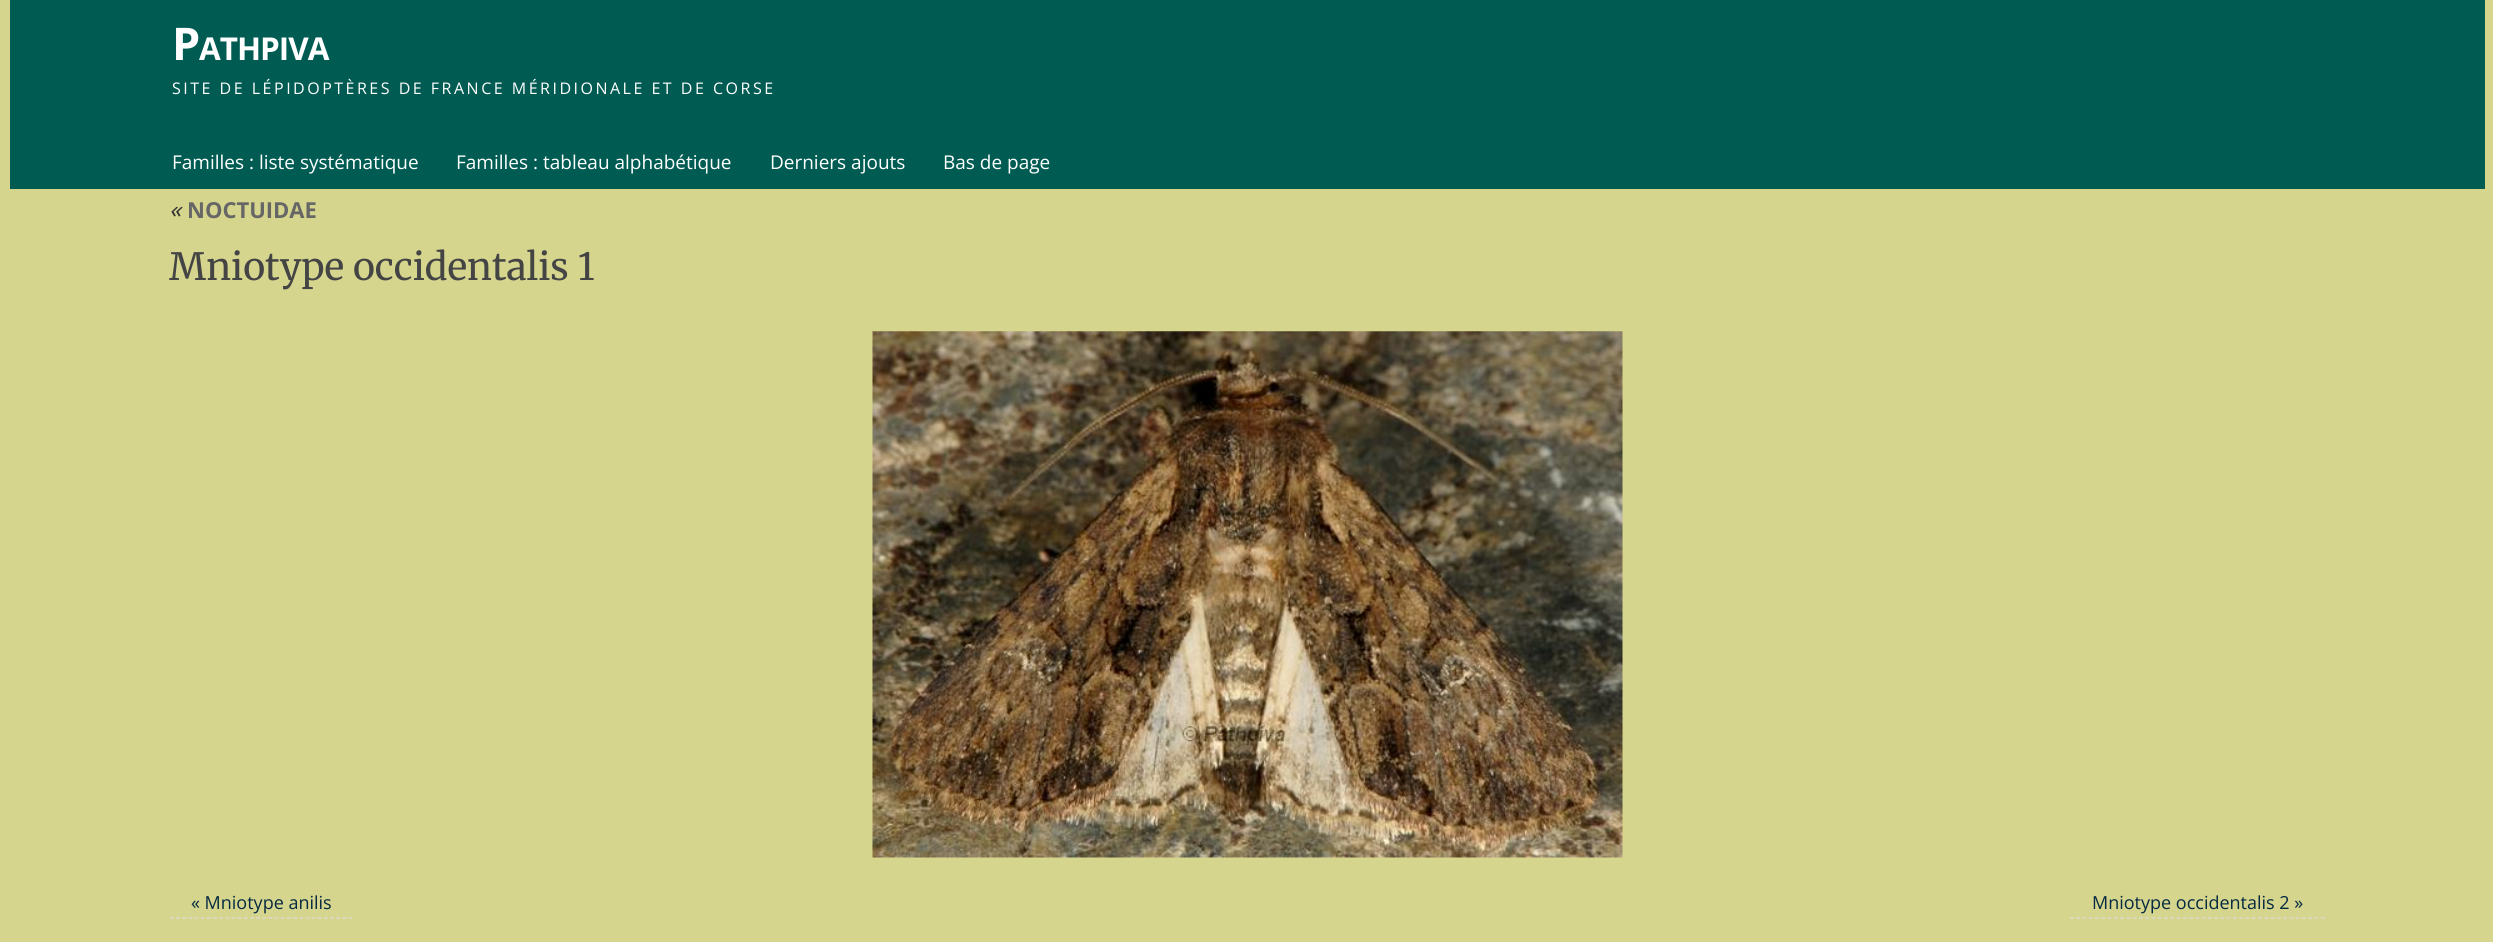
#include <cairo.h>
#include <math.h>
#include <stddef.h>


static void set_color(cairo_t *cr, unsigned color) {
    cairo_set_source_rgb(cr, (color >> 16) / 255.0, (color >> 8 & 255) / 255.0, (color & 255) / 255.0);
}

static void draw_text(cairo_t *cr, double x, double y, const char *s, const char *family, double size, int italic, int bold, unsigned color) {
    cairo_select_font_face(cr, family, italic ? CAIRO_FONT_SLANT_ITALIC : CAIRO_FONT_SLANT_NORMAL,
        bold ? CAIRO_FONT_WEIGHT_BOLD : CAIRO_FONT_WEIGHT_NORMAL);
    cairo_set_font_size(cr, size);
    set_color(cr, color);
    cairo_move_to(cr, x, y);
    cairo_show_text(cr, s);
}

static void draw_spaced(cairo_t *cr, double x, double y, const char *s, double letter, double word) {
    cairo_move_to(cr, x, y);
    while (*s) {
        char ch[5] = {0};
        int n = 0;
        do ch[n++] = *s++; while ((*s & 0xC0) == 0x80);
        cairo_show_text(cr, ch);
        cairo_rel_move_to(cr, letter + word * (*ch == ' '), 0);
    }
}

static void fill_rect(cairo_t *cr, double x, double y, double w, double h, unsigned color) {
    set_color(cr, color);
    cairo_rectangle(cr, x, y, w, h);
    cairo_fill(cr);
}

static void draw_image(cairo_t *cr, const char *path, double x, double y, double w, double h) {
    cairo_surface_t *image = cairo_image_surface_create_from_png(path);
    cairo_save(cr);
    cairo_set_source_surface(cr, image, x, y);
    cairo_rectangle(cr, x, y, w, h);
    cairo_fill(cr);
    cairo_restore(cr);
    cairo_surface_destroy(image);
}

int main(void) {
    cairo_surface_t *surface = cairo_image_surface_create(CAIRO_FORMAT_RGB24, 2493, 942);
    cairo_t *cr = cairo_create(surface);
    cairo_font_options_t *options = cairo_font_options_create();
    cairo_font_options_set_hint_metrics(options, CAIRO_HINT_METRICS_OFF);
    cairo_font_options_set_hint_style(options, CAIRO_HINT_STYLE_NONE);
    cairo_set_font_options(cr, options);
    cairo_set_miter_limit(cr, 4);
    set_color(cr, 0xD6D58E);
    cairo_paint(cr);
    fill_rect(cr, 10, 0, 2475, 189, 0x005C53);
    cairo_select_font_face(cr, "Open Sans", CAIRO_FONT_SLANT_NORMAL, CAIRO_FONT_WEIGHT_BOLD);
    cairo_set_font_size(cr, 45);
    set_color(cr, 0xFFFFFF);
    draw_spaced(cr, 172, 60, "P", -1, 0);
    cairo_set_font_size(cr, 31.5);
    draw_spaced(cr, 199, 60, "ATHPIVA", -1, 0);
    cairo_select_font_face(cr, "Open Sans", CAIRO_FONT_SLANT_NORMAL, CAIRO_FONT_WEIGHT_NORMAL);
    cairo_set_font_size(cr, 16);
    draw_spaced(cr, 172, 94, "SITE DE LÉPIDOPTÈRES DE FRANCE MÉRIDIONALE ET DE CORSE", 2.5, 0);
    draw_text(cr, 172, 169, "Familles : liste systématique", "Open Sans", 19, 0, 0, 0xFFFFFF);
    draw_text(cr, 456, 169, "Familles : tableau alphabétique", "Open Sans", 19, 0, 0, 0xFFFFFF);
    draw_text(cr, 770, 169, "Derniers ajouts", "Open Sans", 19, 0, 0, 0xFFFFFF);
    draw_text(cr, 943, 169, "Bas de page", "Open Sans", 19, 0, 0, 0xFFFFFF);
    draw_text(cr, 169, 218, "«", "Open Sans", 24, 1, 0, 0x333333);
    draw_text(cr, 187, 218, "NOCTUIDAE", "Open Sans", 22, 0, 1, 0x666666);
    draw_text(cr, 169, 280, "Mniotype occidentalis 1", "Merriweather", 37.5, 0, 0, 0x444444);
    draw_image(cr, "assets/img1.png", 872, 331, 751, 527);
    cairo_new_path(cr);
    cairo_move_to(cr, 170, 918);
    cairo_line_to(cr, 352.5, 918);
    set_color(cr, 0xDDDDDD);
    cairo_set_line_width(cr, 1.2);
    cairo_set_dash(cr, (double[]){3.75, 2.41}, 2, 0);
    cairo_stroke(cr);
    draw_text(cr, 191, 909, "« Mniotype anilis", "Open Sans", 18, 0, 0, 0x042940);
    cairo_new_path(cr);
    cairo_move_to(cr, 2070, 918);
    cairo_line_to(cr, 2325, 918);
    set_color(cr, 0xDDDDDD);
    cairo_set_dash(cr, (double[]){3.75, 2.52}, 2, 0);
    cairo_stroke(cr);
    draw_text(cr, 2092, 909, "Mniotype occidentalis 2 »", "Open Sans", 18, 0, 0, 0x042940);
    cairo_surface_write_to_png(surface, "output.png");
    cairo_font_options_destroy(options);
    cairo_destroy(cr);
    cairo_surface_destroy(surface);
    return 0;
}
